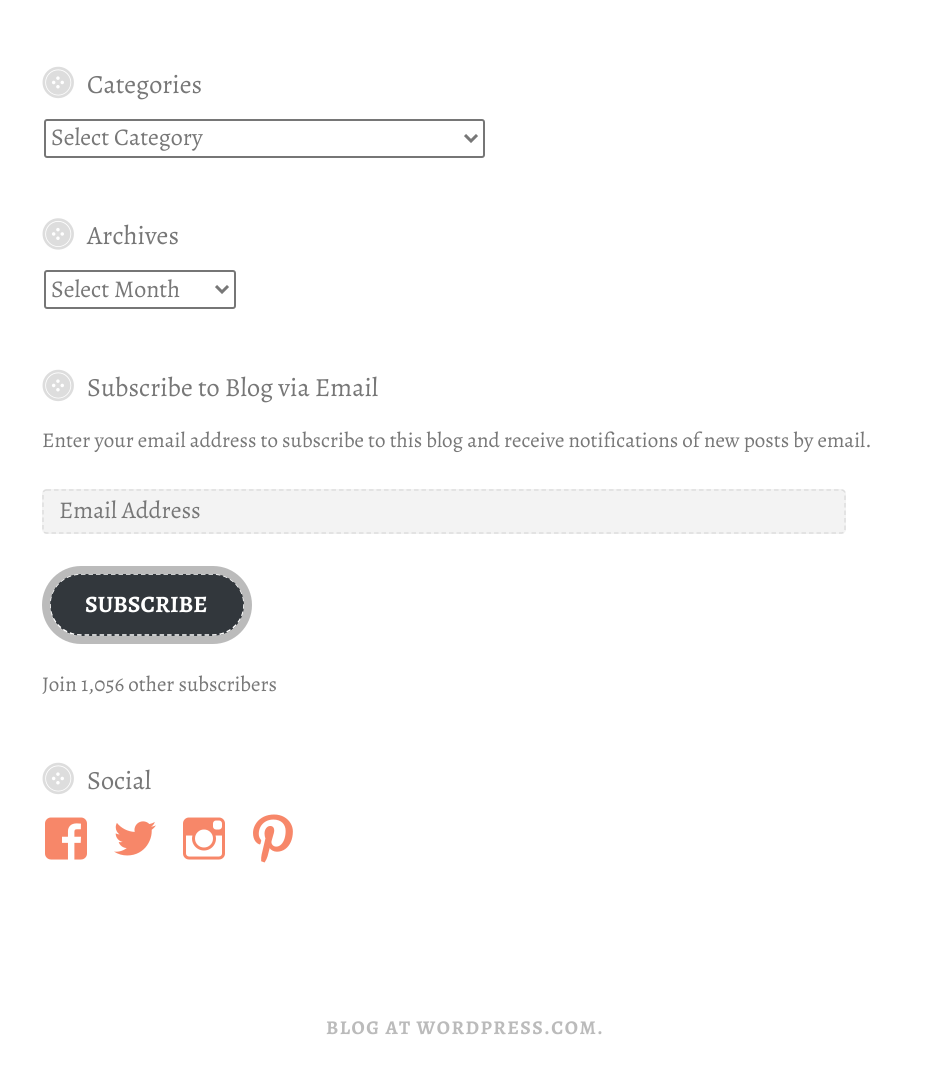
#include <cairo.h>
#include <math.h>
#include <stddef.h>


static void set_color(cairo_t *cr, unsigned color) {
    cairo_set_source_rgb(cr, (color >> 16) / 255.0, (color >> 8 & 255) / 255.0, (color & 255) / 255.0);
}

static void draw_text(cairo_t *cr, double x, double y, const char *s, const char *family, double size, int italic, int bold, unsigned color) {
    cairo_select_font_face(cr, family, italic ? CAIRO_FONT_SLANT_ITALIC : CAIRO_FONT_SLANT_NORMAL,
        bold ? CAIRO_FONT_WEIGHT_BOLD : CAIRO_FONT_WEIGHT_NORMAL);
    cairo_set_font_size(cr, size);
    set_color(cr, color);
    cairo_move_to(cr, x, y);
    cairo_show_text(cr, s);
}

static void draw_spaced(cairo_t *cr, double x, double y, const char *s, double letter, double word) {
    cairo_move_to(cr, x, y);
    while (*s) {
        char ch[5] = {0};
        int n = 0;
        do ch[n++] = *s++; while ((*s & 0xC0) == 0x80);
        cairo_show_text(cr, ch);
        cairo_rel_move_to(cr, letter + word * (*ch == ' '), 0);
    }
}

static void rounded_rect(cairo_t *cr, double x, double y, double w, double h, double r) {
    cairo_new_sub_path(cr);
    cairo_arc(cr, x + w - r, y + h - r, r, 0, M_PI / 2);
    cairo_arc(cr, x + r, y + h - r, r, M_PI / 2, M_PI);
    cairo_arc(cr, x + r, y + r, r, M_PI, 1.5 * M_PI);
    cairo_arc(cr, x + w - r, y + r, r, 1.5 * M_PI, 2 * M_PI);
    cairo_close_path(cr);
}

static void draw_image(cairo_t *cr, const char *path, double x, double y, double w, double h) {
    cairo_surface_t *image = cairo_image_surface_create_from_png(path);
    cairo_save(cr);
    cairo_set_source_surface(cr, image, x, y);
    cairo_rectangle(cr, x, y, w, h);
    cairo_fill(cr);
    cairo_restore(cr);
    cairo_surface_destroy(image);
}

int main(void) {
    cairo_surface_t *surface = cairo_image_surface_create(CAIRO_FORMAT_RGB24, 930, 1086);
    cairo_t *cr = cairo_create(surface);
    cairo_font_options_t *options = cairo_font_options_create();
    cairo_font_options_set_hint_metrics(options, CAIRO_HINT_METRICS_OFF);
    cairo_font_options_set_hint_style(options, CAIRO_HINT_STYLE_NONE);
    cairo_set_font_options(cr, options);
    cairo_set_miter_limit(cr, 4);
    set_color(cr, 0xFFFFFF);
    cairo_paint(cr);
    draw_image(cr, "assets/img1.png", 42, 66, 32, 33);
    draw_text(cr, 87, 93, "Categories", "Alegreya", 26.25, 0, 0, 0x777777);
    rounded_rect(cr, 45, 120, 439, 37, 2);
    set_color(cr, 0x767676);
    cairo_stroke(cr);
    cairo_new_path(cr);
    cairo_move_to(cr, 465, 135);
    cairo_line_to(cr, 471, 141);
    cairo_line_to(cr, 477, 135);
    set_color(cr, 0x777777);
    cairo_set_line_width(cr, 3);
    cairo_stroke(cr);
    draw_text(cr, 51, 145, "Select Category", "Alegreya", 24, 0, 0, 0x777777);
    draw_image(cr, "assets/img2.png", 42, 218, 32, 32);
    draw_text(cr, 87, 244, "Archives", "Alegreya", 26.25, 0, 0, 0x777777);
    rounded_rect(cr, 45, 271, 190, 37, 2);
    set_color(cr, 0x767676);
    cairo_set_line_width(cr, 2);
    cairo_stroke(cr);
    cairo_new_path(cr);
    cairo_move_to(cr, 216, 286);
    cairo_line_to(cr, 222, 292);
    cairo_line_to(cr, 228, 286);
    set_color(cr, 0x777777);
    cairo_set_line_width(cr, 3);
    cairo_stroke(cr);
    draw_text(cr, 51, 297, "Select Month", "Alegreya", 24, 0, 0, 0x777777);
    draw_image(cr, "assets/img1.png", 42, 369, 32, 33);
    draw_text(cr, 87, 396, "Subscribe to Blog via Email", "Alegreya", 26.25, 0, 0, 0x777777);
    draw_text(cr, 42, 447, "Enter your email address to subscribe to this blog and receive notifications of new posts by email.", "Alegreya", 21, 0, 0, 0x777777);
    set_color(cr, 0xF3F3F3);
    rounded_rect(cr, 42, 489, 804, 45, 5);
    cairo_fill(cr);
    cairo_new_path(cr);
    cairo_move_to(cr, 46.5, 490);
    cairo_line_to(cr, 841.5, 490);
    cairo_curve_to(cr, 843.5, 490, 845, 491.5, 845, 493.5);
    cairo_line_to(cr, 845, 529.5);
    cairo_curve_to(cr, 845, 531.5, 843.5, 533, 841.5, 533);
    cairo_line_to(cr, 46.5, 533);
    cairo_curve_to(cr, 44.5, 533, 43, 531.5, 43, 529.5);
    cairo_line_to(cr, 43, 493.5);
    cairo_curve_to(cr, 43, 491.5, 44.5, 490, 46.5, 490);
    cairo_close_path(cr);
    set_color(cr, 0xDDDDDD);
    cairo_set_line_width(cr, 1.5);
    cairo_set_dash(cr, (double[]){4.5, 3}, 2, 0);
    cairo_stroke(cr);
    draw_text(cr, 59, 518, "Email Address", "Alegreya", 24, 0, 0, 0x777777);
    set_color(cr, 0x32373C);
    rounded_rect(cr, 50, 573, 195, 63, 31.5);
    cairo_fill(cr);
    cairo_new_path(cr);
    cairo_move_to(cr, 81, 574);
    cairo_line_to(cr, 213, 574);
    cairo_curve_to(cr, 230, 574, 244, 587.5, 244, 604.5);
    cairo_curve_to(cr, 244, 621.5, 230, 635, 213, 635);
    cairo_line_to(cr, 81, 635);
    cairo_curve_to(cr, 64, 635, 50, 621.5, 50, 604.5);
    cairo_curve_to(cr, 50, 587.5, 64, 574, 81, 574);
    cairo_close_path(cr);
    set_color(cr, 0xFFFFFF);
    cairo_stroke(cr);
    rounded_rect(cr, 46, 570, 202, 70, 35);
    set_color(cr, 0xBBBBBB);
    cairo_set_line_width(cr, 8);
    cairo_set_dash(cr, NULL, 0, 0);
    cairo_stroke(cr);
    draw_text(cr, 85, 612, "SUBSCRIBE", "Alegreya", 23.5, 0, 1, 0xFFFFFF);
    draw_text(cr, 42, 691, "Join 1,056 other subscribers", "Alegreya", 21, 0, 0, 0x777777);
    draw_image(cr, "assets/img1.png", 42, 762, 32, 33);
    draw_text(cr, 87, 789, "Social", "Alegreya", 26.25, 0, 0, 0x777777);
    draw_image(cr, "assets/img3.png", 45, 817, 42, 43);
    draw_image(cr, "assets/img4.png", 114, 821, 42, 35);
    draw_image(cr, "assets/img5.png", 183, 817, 42, 43);
    draw_image(cr, "assets/img6.png", 253, 814, 40, 49);
    cairo_select_font_face(cr, "Alegreya", CAIRO_FONT_SLANT_NORMAL, CAIRO_FONT_WEIGHT_BOLD);
    cairo_set_font_size(cr, 19.5);
    set_color(cr, 0xBBBBBB);
    draw_spaced(cr, 326, 1034, "BLOG AT WORDPRESS.COM.", 1.5, 0);
    cairo_surface_write_to_png(surface, "output.png");
    cairo_font_options_destroy(options);
    cairo_destroy(cr);
    cairo_surface_destroy(surface);
    return 0;
}
